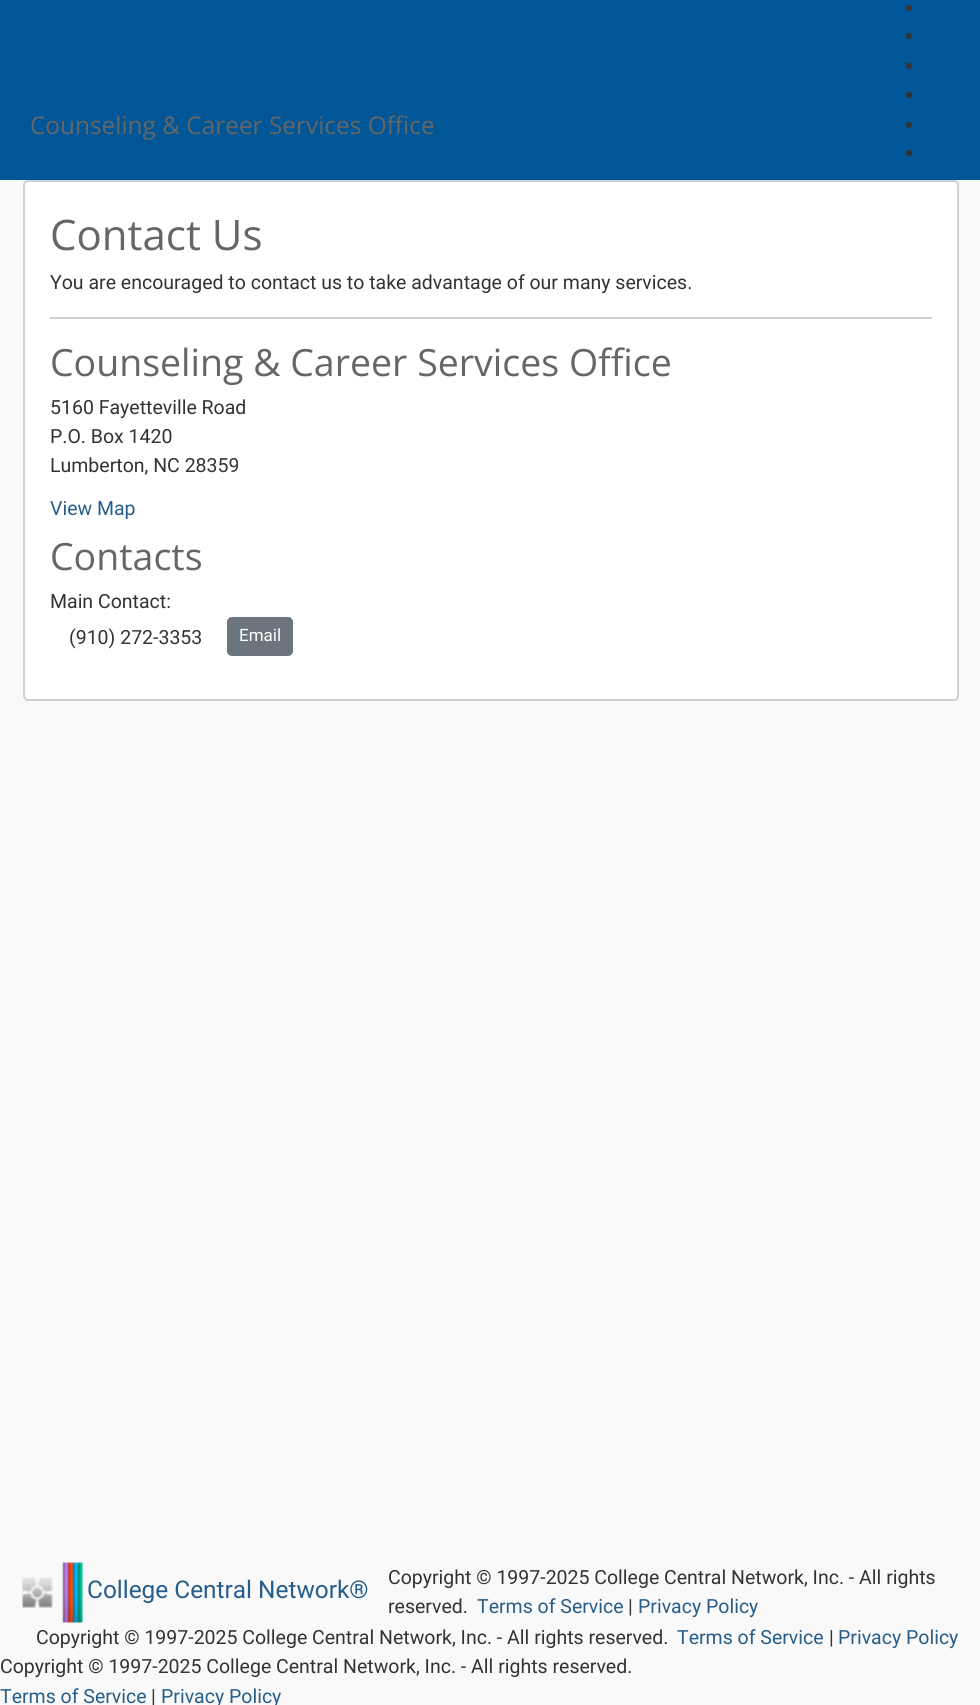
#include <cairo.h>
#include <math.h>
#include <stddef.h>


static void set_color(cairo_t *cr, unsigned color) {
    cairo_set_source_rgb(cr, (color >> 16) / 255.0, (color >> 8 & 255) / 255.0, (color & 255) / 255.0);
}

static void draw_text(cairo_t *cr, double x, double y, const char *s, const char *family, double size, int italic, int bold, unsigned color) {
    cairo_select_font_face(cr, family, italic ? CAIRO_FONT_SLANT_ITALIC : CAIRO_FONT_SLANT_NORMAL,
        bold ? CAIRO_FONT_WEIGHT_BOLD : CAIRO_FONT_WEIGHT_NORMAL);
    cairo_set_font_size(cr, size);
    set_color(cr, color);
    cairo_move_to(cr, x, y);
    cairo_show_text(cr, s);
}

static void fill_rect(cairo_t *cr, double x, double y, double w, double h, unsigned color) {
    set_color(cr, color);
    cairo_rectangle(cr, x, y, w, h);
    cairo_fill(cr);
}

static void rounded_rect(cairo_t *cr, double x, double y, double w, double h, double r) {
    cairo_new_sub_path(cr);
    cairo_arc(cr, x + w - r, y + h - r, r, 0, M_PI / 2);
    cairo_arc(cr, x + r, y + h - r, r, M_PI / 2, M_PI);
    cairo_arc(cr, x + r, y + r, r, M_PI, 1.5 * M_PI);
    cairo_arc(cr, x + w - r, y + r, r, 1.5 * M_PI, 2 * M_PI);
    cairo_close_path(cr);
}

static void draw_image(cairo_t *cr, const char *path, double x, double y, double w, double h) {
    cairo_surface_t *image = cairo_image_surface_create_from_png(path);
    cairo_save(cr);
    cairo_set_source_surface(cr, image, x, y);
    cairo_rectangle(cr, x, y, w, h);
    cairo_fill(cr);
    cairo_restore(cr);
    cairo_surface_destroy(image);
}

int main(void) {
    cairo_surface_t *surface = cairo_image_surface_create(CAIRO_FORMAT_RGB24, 980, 1705);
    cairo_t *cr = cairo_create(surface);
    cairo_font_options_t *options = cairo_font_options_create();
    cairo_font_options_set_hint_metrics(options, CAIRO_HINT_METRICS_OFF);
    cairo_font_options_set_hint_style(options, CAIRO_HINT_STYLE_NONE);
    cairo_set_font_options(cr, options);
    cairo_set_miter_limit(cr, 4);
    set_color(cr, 0xF9F9F9);
    cairo_paint(cr);
    fill_rect(cr, 0, 0, 980, 180, 0x005696);
    draw_text(cr, 30, 134, "Counseling & Career Services Office", "Open Sans", 24.4, 0, 0, 0x666666);
    set_color(cr, 0x333333);
    cairo_new_path(cr);
    cairo_arc(cr, 909, 8, 3, 0, 2 * M_PI);
    cairo_fill(cr);
    cairo_arc(cr, 909, 36, 3, 0, 2 * M_PI);
    cairo_fill(cr);
    cairo_arc(cr, 909, 66, 3, 0, 2 * M_PI);
    cairo_fill(cr);
    cairo_arc(cr, 909, 95, 3, 0, 2 * M_PI);
    cairo_fill(cr);
    cairo_arc(cr, 909, 125, 3, 0, 2 * M_PI);
    cairo_fill(cr);
    cairo_arc(cr, 909, 153, 3, 0, 2 * M_PI);
    cairo_fill(cr);
    set_color(cr, 0xFFFFFF);
    rounded_rect(cr, 24, 181, 934, 519, 4);
    cairo_fill_preserve(cr);
    set_color(cr, 0xCFCFD6);
    cairo_stroke(cr);
    draw_text(cr, 50, 250, "Contact Us", "Open Sans", 42, 0, 0, 0x666666);
    draw_text(cr, 50, 289, "You are encouraged to contact us to take advantage of our many services.", "Roboto", 19.5, 0, 0, 0x333333);
    fill_rect(cr, 50, 317, 882, 2, 0xCFCFD6);
    draw_text(cr, 50, 376, "Counseling & Career Services Office", "Open Sans", 37.5, 0, 0, 0x666666);
    draw_text(cr, 50, 414, "5160 Fayetteville Road", "Roboto", 19.5, 0, 0, 0x333333);
    draw_text(cr, 50, 443, "P.O. Box 1420", "Roboto", 19.5, 0, 0, 0x333333);
    draw_text(cr, 50, 472, "Lumberton, NC 28359", "Roboto", 19.5, 0, 0, 0x333333);
    draw_text(cr, 50, 515, "View Map", "Roboto", 19.5, 0, 0, 0x275D8B);
    draw_text(cr, 50, 570, "Contacts", "Open Sans", 37.5, 0, 0, 0x666666);
    draw_text(cr, 50, 608, "Main Contact:", "Roboto", 19.5, 0, 0, 0x333333);
    draw_text(cr, 69, 644, "(910) 272-3353", "Roboto", 19.5, 0, 0, 0x333333);
    set_color(cr, 0x6C757D);
    rounded_rect(cr, 228, 618, 64, 37, 4);
    cairo_fill_preserve(cr);
    cairo_stroke(cr);
    draw_text(cr, 239, 641, "Email", "Roboto", 17, 0, 0, 0xFFFFFF);
    draw_text(cr, 388, 1584, "Copyright © 1997-2025 College Central Network, Inc. - All rights", "Roboto", 19.5, 0, 0, 0x333333);
    draw_text(cr, 388, 1613, "reserved.", "Roboto", 19.5, 0, 0, 0x333333);
    draw_text(cr, 477, 1613, "Terms of Service", "Roboto", 19.5, 0, 0, 0x275D8B);
    draw_text(cr, 628, 1613, "|", "Roboto", 19.5, 0, 0, 0x333333);
    draw_text(cr, 638, 1613, "Privacy Policy", "Roboto", 19.5, 0, 0, 0x275D8B);
    draw_image(cr, "assets/img1.png", 22, 1562, 61, 61);
    draw_text(cr, 87, 1598, "College Central Network®", "Roboto", 24.4, 0, 0, 0x275D8B);
    draw_text(cr, 36, 1644, "Copyright © 1997-2025 College Central Network, Inc. - All rights reserved.", "Roboto", 19.5, 0, 0, 0x333333);
    draw_text(cr, 677, 1644, "Terms of Service", "Roboto", 19.5, 0, 0, 0x275D8B);
    draw_text(cr, 829, 1644, "|", "Roboto", 19.5, 0, 0, 0x333333);
    draw_text(cr, 838, 1644, "Privacy Policy", "Roboto", 19.5, 0, 0, 0x275D8B);
    draw_text(cr, 0, 1673, "Copyright © 1997-2025 College Central Network, Inc. - All rights reserved.", "Roboto", 19.5, 0, 0, 0x333333);
    draw_text(cr, 0, 1703, "Terms of Service", "Roboto", 19.5, 0, 0, 0x275D8B);
    draw_text(cr, 151, 1703, "|", "Roboto", 19.5, 0, 0, 0x333333);
    draw_text(cr, 161, 1703, "Privacy Policy", "Roboto", 19.5, 0, 0, 0x275D8B);
    cairo_surface_write_to_png(surface, "output.png");
    cairo_font_options_destroy(options);
    cairo_destroy(cr);
    cairo_surface_destroy(surface);
    return 0;
}
